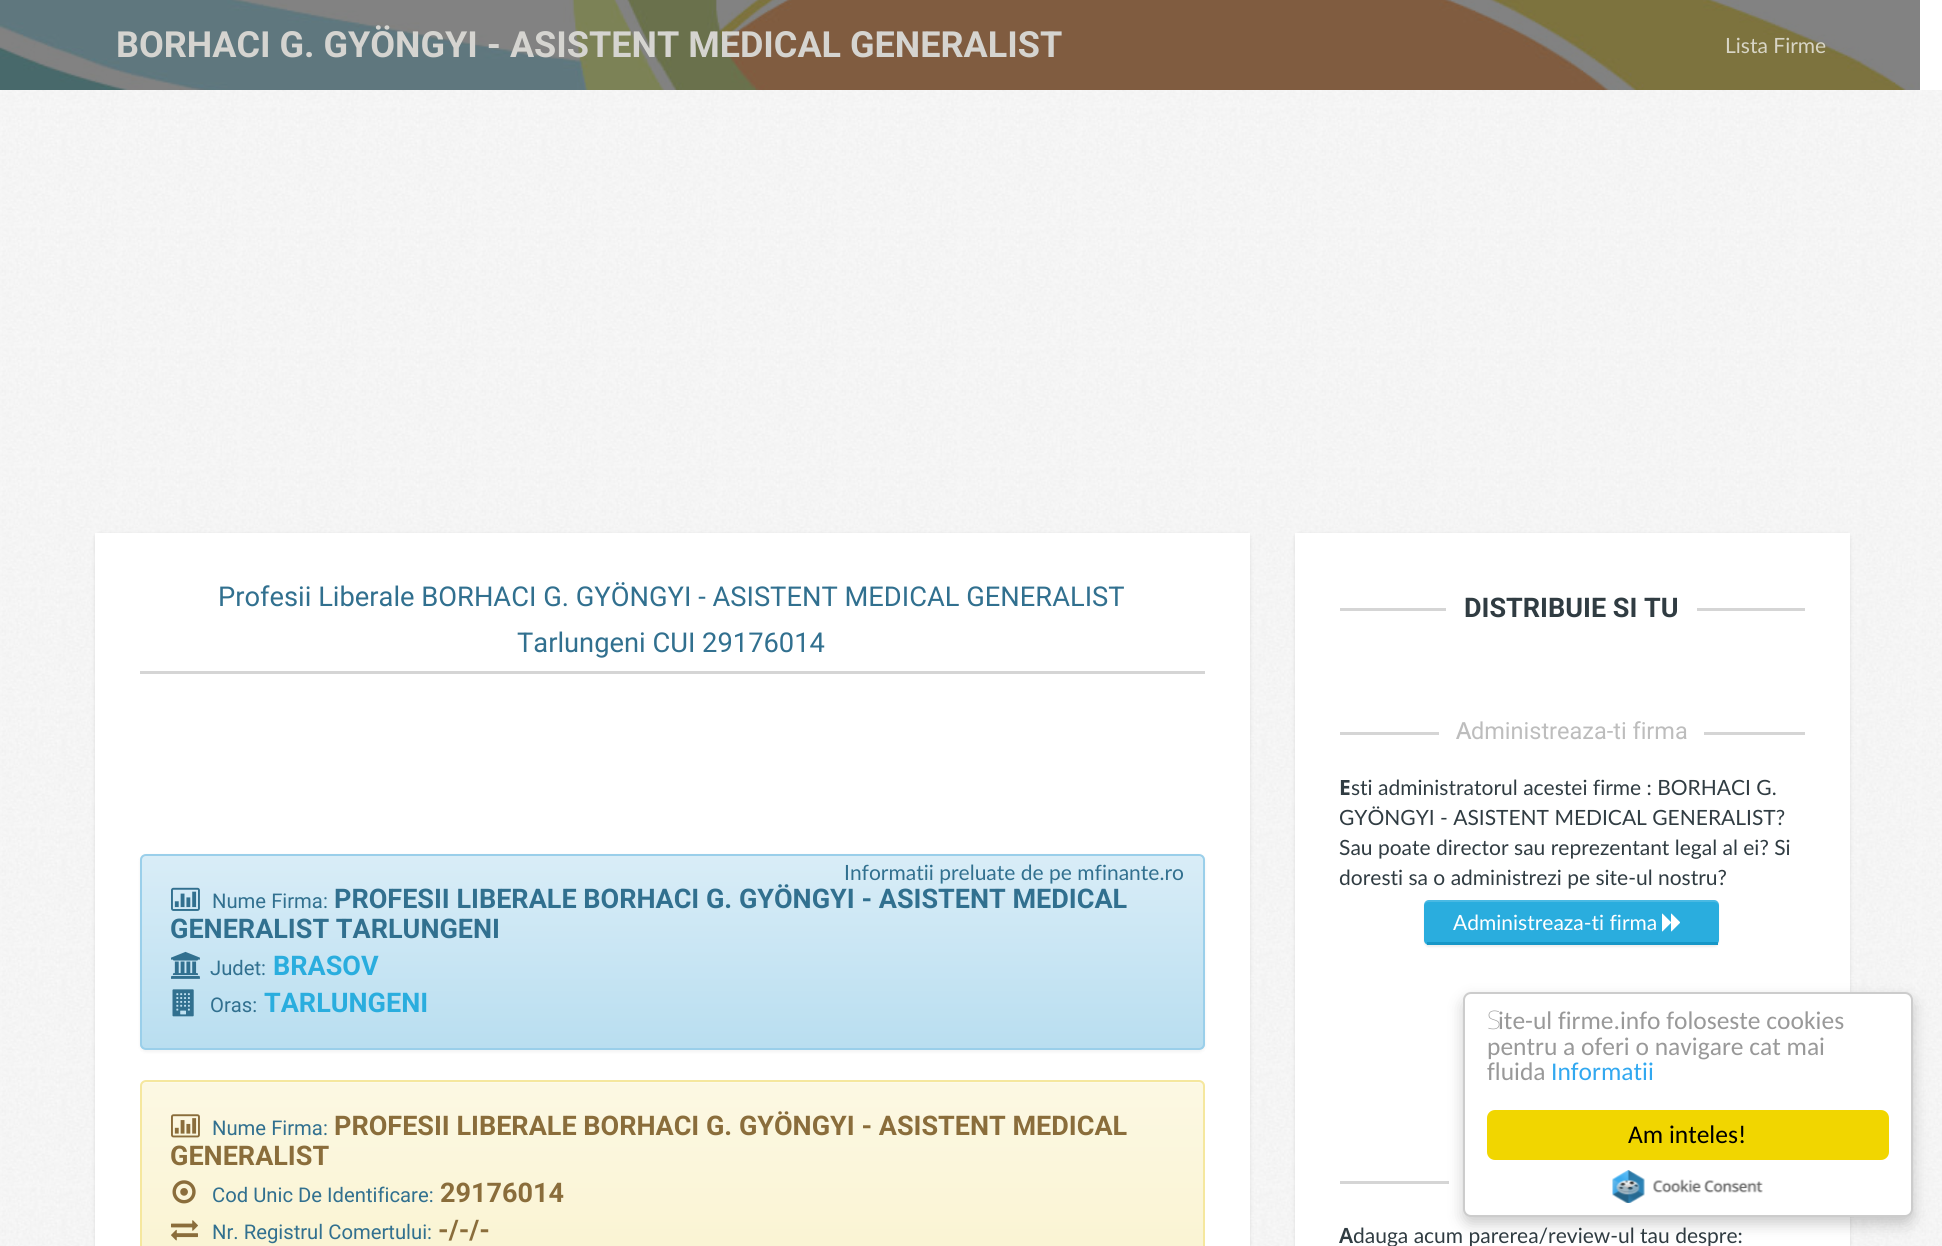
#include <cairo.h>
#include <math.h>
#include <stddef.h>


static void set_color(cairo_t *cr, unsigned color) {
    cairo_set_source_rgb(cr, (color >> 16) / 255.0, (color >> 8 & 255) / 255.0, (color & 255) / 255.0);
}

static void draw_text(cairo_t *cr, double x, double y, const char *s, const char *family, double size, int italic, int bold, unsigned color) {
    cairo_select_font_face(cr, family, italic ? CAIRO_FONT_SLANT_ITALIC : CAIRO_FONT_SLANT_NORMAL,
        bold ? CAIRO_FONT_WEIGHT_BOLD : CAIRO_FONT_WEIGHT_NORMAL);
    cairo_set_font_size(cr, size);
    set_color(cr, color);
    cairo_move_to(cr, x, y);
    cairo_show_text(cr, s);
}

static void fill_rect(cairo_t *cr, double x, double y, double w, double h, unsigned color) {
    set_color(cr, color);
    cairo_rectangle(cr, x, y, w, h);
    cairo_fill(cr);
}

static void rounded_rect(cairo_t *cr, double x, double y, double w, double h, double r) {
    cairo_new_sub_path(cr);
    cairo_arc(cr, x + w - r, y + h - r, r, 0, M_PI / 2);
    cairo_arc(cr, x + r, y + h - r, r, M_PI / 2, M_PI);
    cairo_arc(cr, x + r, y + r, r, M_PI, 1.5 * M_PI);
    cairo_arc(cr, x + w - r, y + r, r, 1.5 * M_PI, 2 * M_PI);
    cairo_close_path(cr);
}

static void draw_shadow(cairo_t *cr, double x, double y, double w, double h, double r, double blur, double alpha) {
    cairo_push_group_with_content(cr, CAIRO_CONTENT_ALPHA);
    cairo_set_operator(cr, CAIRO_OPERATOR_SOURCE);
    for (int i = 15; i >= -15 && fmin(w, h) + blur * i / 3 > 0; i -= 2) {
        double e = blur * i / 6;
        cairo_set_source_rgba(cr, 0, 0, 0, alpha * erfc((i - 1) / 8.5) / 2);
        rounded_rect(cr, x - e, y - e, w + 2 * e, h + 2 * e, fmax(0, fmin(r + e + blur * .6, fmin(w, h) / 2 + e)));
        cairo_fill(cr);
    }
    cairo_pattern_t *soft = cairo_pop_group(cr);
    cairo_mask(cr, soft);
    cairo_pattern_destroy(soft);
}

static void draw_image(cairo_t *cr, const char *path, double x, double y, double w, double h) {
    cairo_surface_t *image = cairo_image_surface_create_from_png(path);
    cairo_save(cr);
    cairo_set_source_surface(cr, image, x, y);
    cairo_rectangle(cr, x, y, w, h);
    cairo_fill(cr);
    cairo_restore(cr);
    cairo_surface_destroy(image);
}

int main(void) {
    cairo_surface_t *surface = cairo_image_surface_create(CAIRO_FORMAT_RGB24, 1942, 1246);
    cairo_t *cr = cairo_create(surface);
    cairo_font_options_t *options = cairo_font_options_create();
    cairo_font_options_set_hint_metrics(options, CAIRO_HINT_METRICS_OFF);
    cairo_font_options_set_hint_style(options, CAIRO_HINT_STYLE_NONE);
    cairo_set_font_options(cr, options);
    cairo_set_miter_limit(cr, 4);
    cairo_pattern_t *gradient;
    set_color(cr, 0xFFFFFF);
    cairo_paint(cr);
    draw_image(cr, "assets/img1.png", 0, 90, 1942, 1156);
    draw_image(cr, "assets/img2.png", 0, 0, 1920, 90);
    draw_text(cr, 116, 57, "BORHACI G. GYÖNGYI - ASISTENT MEDICAL GENERALIST", "Roboto", 36, 0, 1, 0xD5D4D0);
    draw_text(cr, 1725, 53, "Lista Firme", "Lato", 21, 0, 0, 0xD8D5C6);
    set_color(cr, 0x000000);
    draw_shadow(cr, 95, 534, 1155, 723, 5, 2, 0.1);
    fill_rect(cr, 95, 533, 1155, 713, 0xFFFFFF);
    fill_rect(cr, 140, 671, 1065, 3, 0xD5D5D5);
    draw_text(cr, 218, 606, "Profesii Liberale BORHACI G. GYÖNGYI - ASISTENT MEDICAL GENERALIST", "Roboto", 27.3, 0, 0, 0x31708F);
    draw_text(cr, 517, 652, "Tarlungeni CUI 29176014", "Roboto", 27.3, 0, 0, 0x31708F);
    set_color(cr, 0x000000);
    draw_shadow(cr, 140, 855, 1065, 197, 6, 1.5, 0.05);
    cairo_save(cr);
    rounded_rect(cr, 140, 854, 1065, 196, 6);
    cairo_clip(cr);
    gradient = cairo_pattern_create_linear(672, 855, 672, 1049);
    cairo_pattern_add_color_stop_rgba(gradient, 0, 0.851, 0.929, 0.969, 1);
    cairo_pattern_add_color_stop_rgba(gradient, 1, 0.725, 0.871, 0.941, 1);
    cairo_set_source(cr, gradient);
    cairo_pattern_destroy(gradient);
    cairo_rectangle(cr, 140, 855, 1065, 194);
    cairo_fill(cr);
    cairo_restore(cr);
    set_color(cr, 0xE3F2F9);
    cairo_new_path(cr);
    cairo_move_to(cr, 146, 856);
    cairo_line_to(cr, 1198, 856);
    cairo_curve_to(cr, 1201, 856, 1203, 859, 1203, 861);
    cairo_curve_to(cr, 1203, 858, 1201, 855, 1198, 855);
    cairo_line_to(cr, 146, 855);
    cairo_curve_to(cr, 143, 855, 141, 858, 141, 861);
    cairo_curve_to(cr, 141, 859, 143, 856, 146, 856);
    cairo_close_path(cr);
    cairo_fill(cr);
    rounded_rect(cr, 141, 855, 1063, 194, 5);
    set_color(cr, 0x9ACFEA);
    cairo_stroke(cr);
    draw_text(cr, 844, 880, "Informatii preluate de pe mfinante.ro", "Lato", 21, 0, 0, 0x31708F);
    draw_image(cr, "assets/img3.png", 171, 887, 29, 24);
    draw_text(cr, 212, 908, "Nume Firma:", "Roboto", 20.25, 0, 0, 0x31708F);
    draw_text(cr, 334, 908, "PROFESII LIBERALE BORHACI G. GYÖNGYI - ASISTENT MEDICAL", "Roboto", 27, 0, 1, 0x31708F);
    draw_text(cr, 170, 938, "GENERALIST TARLUNGENI", "Roboto", 27, 0, 1, 0x31708F);
    draw_image(cr, "assets/img4.png", 171, 951, 29, 28);
    draw_text(cr, 210, 975, "Judet:", "Roboto", 20.25, 0, 0, 0x31708F);
    draw_text(cr, 273, 975, "BRASOV", "Roboto", 27, 0, 1, 0x2AADDE);
    draw_image(cr, "assets/img5.png", 172, 989, 22, 28);
    draw_text(cr, 210, 1012, "Oras:", "Roboto", 20.25, 0, 0, 0x31708F);
    draw_text(cr, 264, 1012, "TARLUNGENI", "Roboto", 27, 0, 1, 0x2AADDE);
    cairo_save(cr);
    rounded_rect(cr, 140, 1080, 1065, 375, 6);
    cairo_clip(cr);
    gradient = cairo_pattern_create_linear(672, 1082, 672, 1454);
    cairo_pattern_add_color_stop_rgba(gradient, 0, 0.988, 0.973, 0.89, 1);
    cairo_pattern_add_color_stop_rgba(gradient, 1, 0.973, 0.937, 0.753, 1);
    cairo_set_source(cr, gradient);
    cairo_pattern_destroy(gradient);
    cairo_rectangle(cr, 140, 1082, 1065, 164);
    cairo_fill(cr);
    cairo_restore(cr);
    set_color(cr, 0xFDFAEA);
    cairo_new_path(cr);
    cairo_move_to(cr, 146, 1083);
    cairo_line_to(cr, 1198, 1083);
    cairo_curve_to(cr, 1201, 1083, 1203, 1085, 1203, 1088);
    cairo_curve_to(cr, 1203, 1085, 1201, 1082, 1198, 1082);
    cairo_line_to(cr, 146, 1082);
    cairo_curve_to(cr, 143, 1082, 141, 1085, 141, 1088);
    cairo_curve_to(cr, 141, 1085, 143, 1083, 146, 1083);
    cairo_close_path(cr);
    cairo_fill(cr);
    rounded_rect(cr, 141, 1081, 1063, 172, 5);
    set_color(cr, 0xF5E79E);
    cairo_stroke(cr);
    draw_image(cr, "assets/img6.png", 171, 1114, 29, 24);
    draw_text(cr, 212, 1135, "Nume Firma:", "Roboto", 20.25, 0, 0, 0x31708F);
    draw_text(cr, 334, 1135, "PROFESII LIBERALE BORHACI G. GYÖNGYI - ASISTENT MEDICAL", "Roboto", 27, 0, 1, 0x8A6D3B);
    draw_text(cr, 170, 1165, "GENERALIST", "Roboto", 27, 0, 1, 0x8A6D3B);
    draw_image(cr, "assets/img7.png", 172, 1180, 24, 24);
    draw_text(cr, 212, 1202, "Cod Unic De Identificare:", "Roboto", 20.25, 0, 0, 0x31708F);
    draw_text(cr, 440, 1202, "29176014", "Roboto", 27, 0, 1, 0x8A6D3B);
    draw_image(cr, "assets/img8.png", 171, 1220, 27, 21);
    draw_text(cr, 212, 1239, "Nr. Registrul Comertului:", "Roboto", 20.25, 0, 0, 0x31708F);
    draw_text(cr, 438, 1239, "-/-/-", "Roboto", 27, 0, 1, 0x8A6D3B);
    set_color(cr, 0x000000);
    draw_shadow(cr, 1295, 534, 555, 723, 5, 2, 0.1);
    fill_rect(cr, 1295, 533, 555, 713, 0xFFFFFF);
    fill_rect(cr, 1340, 608, 465, 3, 0xD5D5D5);
    fill_rect(cr, 1446, 608, 251, 3, 0xFFFFFF);
    draw_text(cr, 1464, 617, "DISTRIBUIE SI TU", "Roboto", 27, 0, 1, 0x303C42);
    fill_rect(cr, 1340, 732, 465, 3, 0xD5D5D5);
    fill_rect(cr, 1439, 732, 265, 3, 0xFFFFFF);
    draw_text(cr, 1456, 739, "A", "Noto Sans Medium", 23.5, 0, 0, 0xBDBDBD);
    draw_text(cr, 1471, 739, "dministreaza-ti firma", "Roboto", 23.5, 0, 0, 0xBDBDBD);
    draw_text(cr, 1339, 795, "E", "Noto Sans", 21, 0, 1, 0x303C42);
    draw_text(cr, 1351, 795, "sti administratorul acestei firme : BORHACI G.", "Lato", 21, 0, 0, 0x303C42);
    draw_text(cr, 1339, 825, "GYÖNGYI - ASISTENT MEDICAL GENERALIST?", "Lato", 21, 0, 0, 0x303C42);
    draw_text(cr, 1339, 855, "Sau poate director sau reprezentant legal al ei? Si", "Lato", 21, 0, 0, 0x303C42);
    draw_text(cr, 1339, 885, "doresti sa o administrezi pe site-ul nostru?", "Lato", 21, 0, 0, 0x303C42);
    set_color(cr, 0x000000);
    draw_shadow(cr, 1424, 902, 295, 45, 5, 1, 0.07);
    set_color(cr, 0x2AADDE);
    rounded_rect(cr, 1424, 900, 295, 45, 5);
    cairo_fill(cr);
    cairo_set_source_rgba(cr, 1, 1, 1, 0.15);
    cairo_new_path(cr);
    cairo_move_to(cr, 1428, 902);
    cairo_line_to(cr, 1714, 902);
    cairo_curve_to(cr, 1717, 902, 1719, 904, 1719, 906);
    cairo_line_to(cr, 1719, 904);
    cairo_curve_to(cr, 1719, 902, 1717, 900, 1714, 900);
    cairo_line_to(cr, 1428, 900);
    cairo_curve_to(cr, 1426, 900, 1424, 902, 1424, 904);
    cairo_line_to(cr, 1424, 940);
    cairo_line_to(cr, 1424, 941);
    cairo_line_to(cr, 1424, 906);
    cairo_curve_to(cr, 1424, 904, 1426, 902, 1428, 902);
    cairo_close_path(cr);
    cairo_fill(cr);
    fill_rect(cr, 1427, 942, 291, 3, 0x1797C7);
    draw_text(cr, 1453, 930, "Administreaza-ti firma", "Lato", 21, 0, 0, 0xFFFFFF);
    draw_image(cr, "assets/img9.png", 1662, 913, 18, 19);
    fill_rect(cr, 1340, 1181, 109, 3, 0xD5D5D5);
    draw_text(cr, 1339, 1243, "A", "Noto Sans SemiBold", 21, 0, 0, 0x303C42);
    draw_text(cr, 1353, 1243, "dauga acum parerea/review-ul tau despre:", "Lato", 21, 0, 0, 0x303C42);
    set_color(cr, 0x000000);
    draw_shadow(cr, 1463, 999, 450, 225, 8, 7.5, 0.2);
    set_color(cr, 0xFFFFFF);
    rounded_rect(cr, 1464, 993, 448, 223, 7);
    cairo_fill_preserve(cr);
    set_color(cr, 0xCCCCCC);
    cairo_stroke(cr);
    draw_text(cr, 1487, 1029, "S", "Noto Sans Thin", 25.5, 0, 0, 0x999999);
    draw_text(cr, 1498, 1029, "ite-ul firme.info foloseste cookies", "Carlito", 25.5, 0, 0, 0x999999);
    draw_text(cr, 1487, 1055, "pentru a oferi o navigare cat mai", "Carlito", 25.5, 0, 0, 0x999999);
    draw_text(cr, 1487, 1080, "fluida", "Carlito", 25.5, 0, 0, 0x999999);
    draw_text(cr, 1551, 1080, "Informatii", "Carlito", 25.5, 0, 0, 0x31A8F0);
    set_color(cr, 0xF1D600);
    rounded_rect(cr, 1487, 1110, 402, 50, 8);
    cairo_fill(cr);
    draw_text(cr, 1628, 1143, "Am inteles!", "Carlito", 25.5, 0, 0, 0x000000);
    draw_image(cr, "assets/img10.png", 1612, 1170, 151, 33);
    cairo_surface_write_to_png(surface, "output.png");
    cairo_font_options_destroy(options);
    cairo_destroy(cr);
    cairo_surface_destroy(surface);
    return 0;
}
